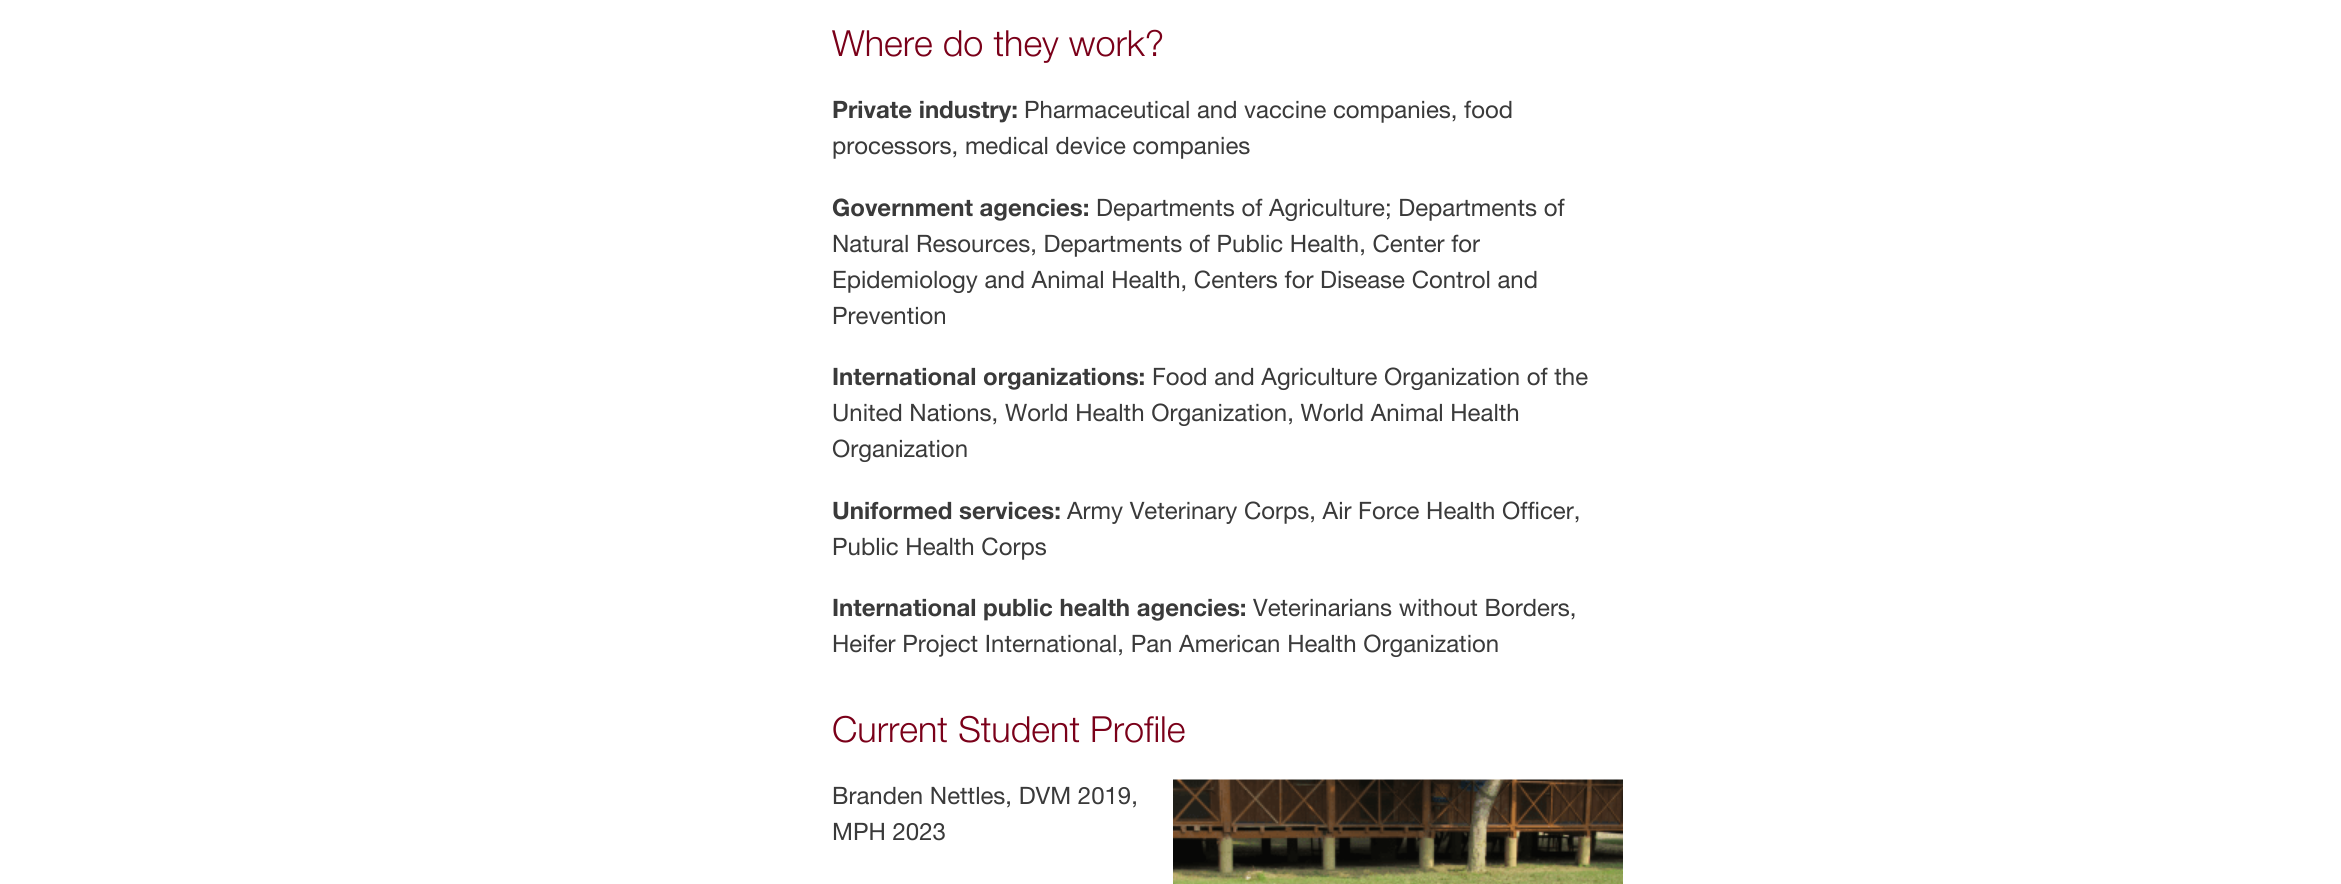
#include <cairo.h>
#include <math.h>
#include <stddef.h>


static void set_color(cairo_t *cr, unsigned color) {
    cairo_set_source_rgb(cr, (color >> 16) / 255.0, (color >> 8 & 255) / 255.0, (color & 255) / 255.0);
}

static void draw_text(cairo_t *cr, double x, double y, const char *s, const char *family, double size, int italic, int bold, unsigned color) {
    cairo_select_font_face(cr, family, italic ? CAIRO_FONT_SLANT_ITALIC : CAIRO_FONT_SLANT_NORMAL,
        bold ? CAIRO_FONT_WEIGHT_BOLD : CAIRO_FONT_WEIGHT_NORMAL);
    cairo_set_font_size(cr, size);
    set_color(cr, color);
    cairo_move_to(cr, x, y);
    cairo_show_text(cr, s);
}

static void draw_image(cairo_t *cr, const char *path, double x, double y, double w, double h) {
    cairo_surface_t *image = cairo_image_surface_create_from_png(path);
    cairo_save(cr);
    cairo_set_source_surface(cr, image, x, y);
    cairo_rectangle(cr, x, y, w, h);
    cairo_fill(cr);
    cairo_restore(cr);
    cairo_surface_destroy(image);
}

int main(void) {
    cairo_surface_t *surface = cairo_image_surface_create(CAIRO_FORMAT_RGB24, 2341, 884);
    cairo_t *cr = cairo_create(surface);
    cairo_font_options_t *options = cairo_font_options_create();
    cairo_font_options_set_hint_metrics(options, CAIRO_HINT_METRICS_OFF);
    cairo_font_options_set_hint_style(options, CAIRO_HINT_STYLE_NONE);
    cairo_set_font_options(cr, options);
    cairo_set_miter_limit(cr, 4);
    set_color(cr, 0xFFFFFF);
    cairo_paint(cr);
    draw_text(cr, 832, 56, "Where do they work?", "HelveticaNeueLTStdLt", 36, 0, 0, 0x7A0019);
    draw_text(cr, 832, 118, "Private industry:", "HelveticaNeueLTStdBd", 24, 0, 0, 0x3A3A3A);
    draw_text(cr, 1024, 118, "Pharmaceutical and vaccine companies, food", "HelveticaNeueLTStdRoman", 24, 0, 0, 0x3A3A3A);
    draw_text(cr, 832, 154, "processors, medical device companies", "HelveticaNeueLTStdRoman", 24, 0, 0, 0x3A3A3A);
    draw_text(cr, 832, 216, "Government agencies:", "HelveticaNeueLTStdBd", 24, 0, 0, 0x3A3A3A);
    draw_text(cr, 1096, 216, "Departments of Agriculture; Departments of", "HelveticaNeueLTStdRoman", 24, 0, 0, 0x3A3A3A);
    draw_text(cr, 832, 252, "Natural Resources, Departments of Public Health, Center for", "HelveticaNeueLTStdRoman", 24, 0, 0, 0x3A3A3A);
    draw_text(cr, 832, 288, "Epidemiology and Animal Health, Centers for Disease Control and", "HelveticaNeueLTStdRoman", 24, 0, 0, 0x3A3A3A);
    draw_text(cr, 832, 324, "Prevention", "HelveticaNeueLTStdRoman", 24, 0, 0, 0x3A3A3A);
    draw_text(cr, 832, 385, "International organizations:", "HelveticaNeueLTStdBd", 24, 0, 0, 0x3A3A3A);
    draw_text(cr, 1152, 385, "Food and Agriculture Organization of the", "HelveticaNeueLTStdRoman", 24, 0, 0, 0x3A3A3A);
    draw_text(cr, 832, 421, "United Nations, World Health Organization, World Animal Health", "HelveticaNeueLTStdRoman", 24, 0, 0, 0x3A3A3A);
    draw_text(cr, 832, 457, "Organization", "HelveticaNeueLTStdRoman", 24, 0, 0, 0x3A3A3A);
    draw_text(cr, 832, 519, "Uniformed services:", "HelveticaNeueLTStdBd", 24, 0, 0, 0x3A3A3A);
    draw_text(cr, 1067, 519, "Army Veterinary Corps, Air Force Health Officer,", "HelveticaNeueLTStdRoman", 24, 0, 0, 0x3A3A3A);
    draw_text(cr, 832, 555, "Public Health Corps", "HelveticaNeueLTStdRoman", 24, 0, 0, 0x3A3A3A);
    draw_text(cr, 832, 616, "International public health agencies:", "HelveticaNeueLTStdBd", 24, 0, 0, 0x3A3A3A);
    draw_text(cr, 1253, 616, "Veterinarians without Borders,", "HelveticaNeueLTStdRoman", 24, 0, 0, 0x3A3A3A);
    draw_text(cr, 832, 652, "Heifer Project International, Pan American Health Organization", "HelveticaNeueLTStdRoman", 24, 0, 0, 0x3A3A3A);
    draw_text(cr, 832, 742, "Current Student Profile", "HelveticaNeueLTStdLt", 36, 0, 0, 0x7A0019);
    draw_text(cr, 832, 804, "Branden Nettles, DVM 2019,", "HelveticaNeueLTStdRoman", 24, 0, 0, 0x3A3A3A);
    draw_image(cr, "assets/img1.png", 1173, 779, 450, 105);
    draw_text(cr, 832, 840, "MPH 2023", "HelveticaNeueLTStdRoman", 24, 0, 0, 0x3A3A3A);
    cairo_surface_write_to_png(surface, "output.png");
    cairo_font_options_destroy(options);
    cairo_destroy(cr);
    cairo_surface_destroy(surface);
    return 0;
}
